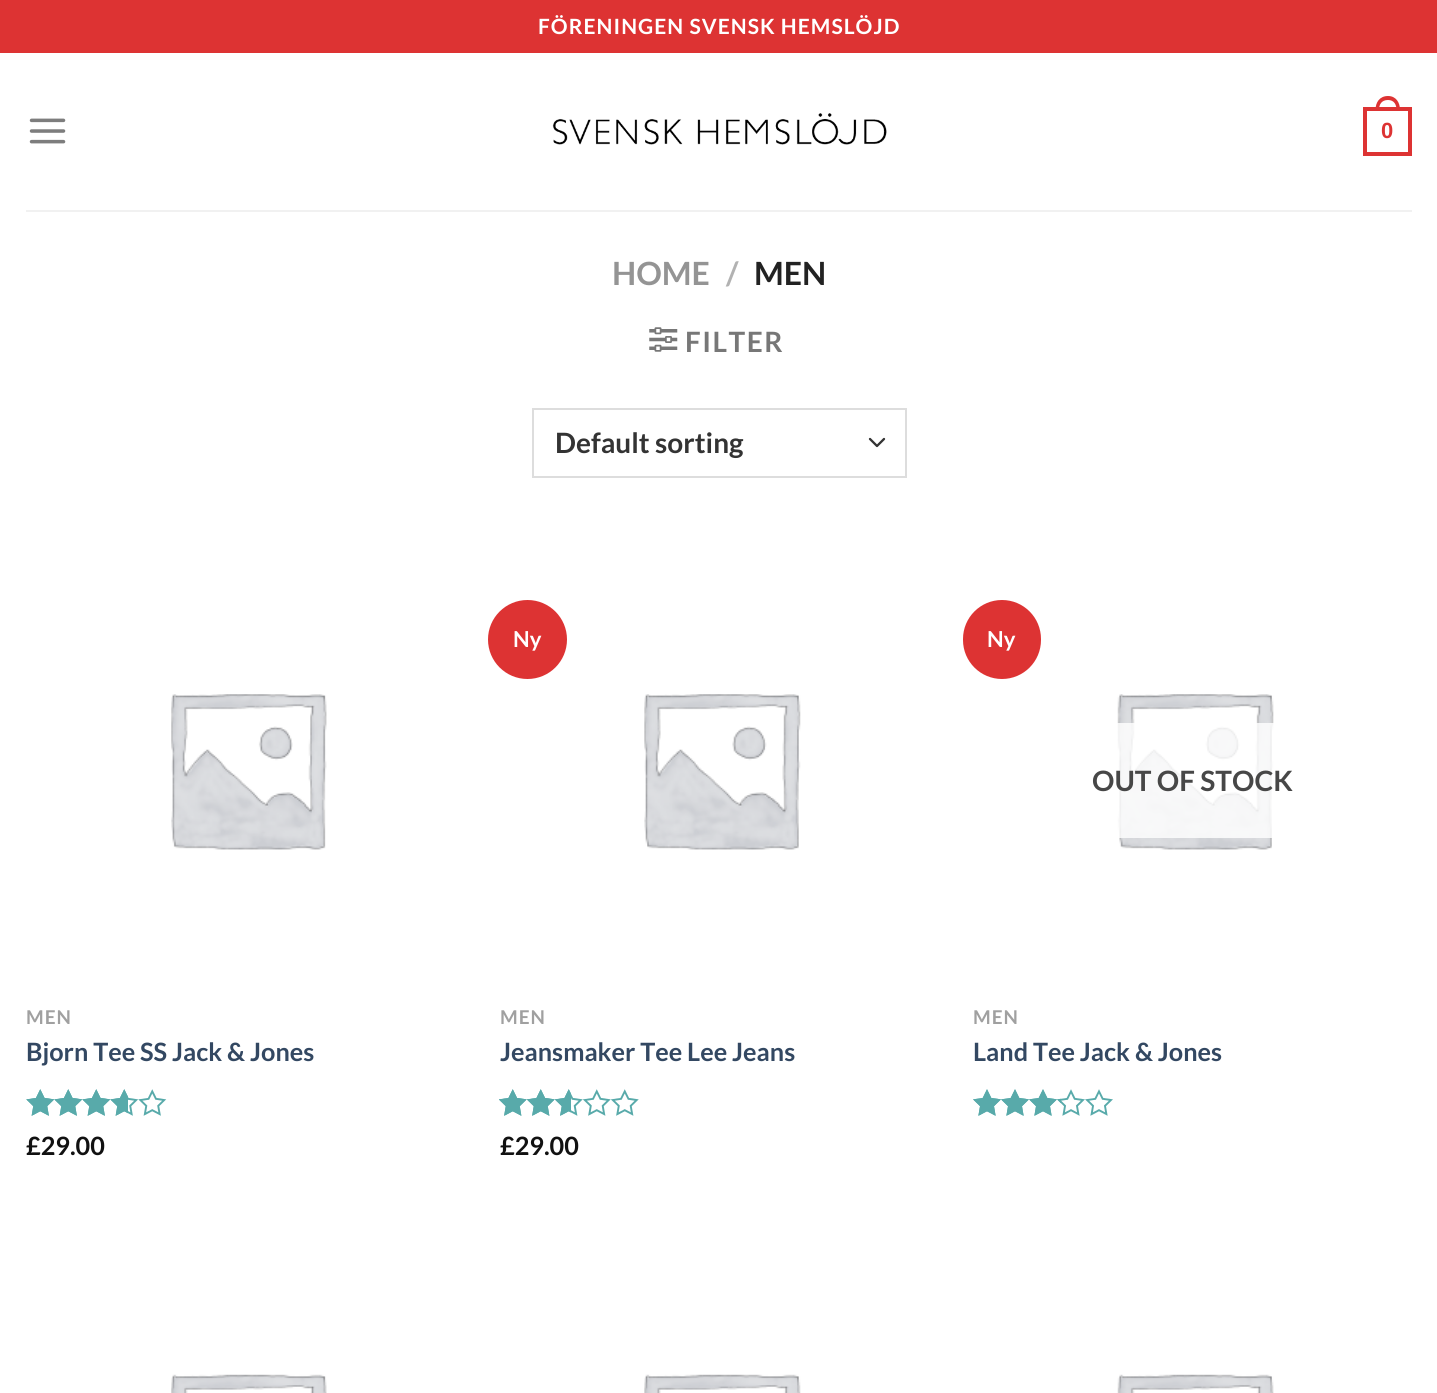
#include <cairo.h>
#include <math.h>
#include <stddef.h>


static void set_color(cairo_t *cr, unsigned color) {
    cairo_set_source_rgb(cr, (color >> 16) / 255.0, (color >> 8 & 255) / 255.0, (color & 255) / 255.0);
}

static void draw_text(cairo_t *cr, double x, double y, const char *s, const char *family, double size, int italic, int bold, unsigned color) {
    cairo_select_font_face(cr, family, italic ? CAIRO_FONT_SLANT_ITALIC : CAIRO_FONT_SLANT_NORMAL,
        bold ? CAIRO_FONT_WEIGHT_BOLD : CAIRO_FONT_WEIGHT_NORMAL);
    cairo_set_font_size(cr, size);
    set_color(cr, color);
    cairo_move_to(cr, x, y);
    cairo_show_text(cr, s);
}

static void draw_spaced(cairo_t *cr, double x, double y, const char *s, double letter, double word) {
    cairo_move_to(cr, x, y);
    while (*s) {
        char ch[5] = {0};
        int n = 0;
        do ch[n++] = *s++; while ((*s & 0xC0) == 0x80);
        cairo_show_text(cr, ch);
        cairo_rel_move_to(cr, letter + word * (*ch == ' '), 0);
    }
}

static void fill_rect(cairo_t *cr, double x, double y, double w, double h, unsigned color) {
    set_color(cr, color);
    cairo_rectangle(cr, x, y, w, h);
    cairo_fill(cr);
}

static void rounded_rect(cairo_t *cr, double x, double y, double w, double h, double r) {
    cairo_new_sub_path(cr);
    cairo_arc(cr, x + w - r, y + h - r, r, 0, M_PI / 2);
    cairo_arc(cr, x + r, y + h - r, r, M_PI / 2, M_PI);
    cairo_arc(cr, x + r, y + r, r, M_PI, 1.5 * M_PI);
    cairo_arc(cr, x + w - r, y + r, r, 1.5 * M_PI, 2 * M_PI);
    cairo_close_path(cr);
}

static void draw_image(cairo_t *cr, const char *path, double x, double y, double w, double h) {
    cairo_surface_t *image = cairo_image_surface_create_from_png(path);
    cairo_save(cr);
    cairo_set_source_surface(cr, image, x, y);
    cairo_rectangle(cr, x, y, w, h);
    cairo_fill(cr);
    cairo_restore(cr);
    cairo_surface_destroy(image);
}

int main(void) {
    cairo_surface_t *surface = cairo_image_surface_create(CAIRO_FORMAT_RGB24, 1437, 1393);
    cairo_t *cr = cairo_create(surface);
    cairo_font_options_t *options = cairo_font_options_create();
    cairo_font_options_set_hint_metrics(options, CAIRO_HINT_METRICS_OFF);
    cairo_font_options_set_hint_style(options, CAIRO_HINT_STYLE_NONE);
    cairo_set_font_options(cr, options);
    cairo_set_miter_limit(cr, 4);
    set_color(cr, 0xFFFFFF);
    cairo_paint(cr);
    fill_rect(cr, 0, 0, 1437, 53, 0xDD3333);
    cairo_select_font_face(cr, "Lato", CAIRO_FONT_SLANT_NORMAL, CAIRO_FONT_WEIGHT_BOLD);
    cairo_set_font_size(cr, 21);
    set_color(cr, 0xFFFFFF);
    draw_spaced(cr, 538, 34, "FÖRENINGEN SVENSK HEMSLÖJD", 1.05, 0);
    draw_image(cr, "assets/img1.png", 29, 118, 37, 26);
    draw_image(cr, "assets/img2.png", 552, 113, 335, 32);
    cairo_rectangle(cr, 1365, 109, 45, 45);
    set_color(cr, 0xDD3333);
    cairo_set_line_width(cr, 4);
    cairo_stroke(cr);
    cairo_set_fill_rule(cr, CAIRO_FILL_RULE_EVEN_ODD);
    cairo_new_path(cr);
    cairo_move_to(cr, 1388, 96);
    cairo_curve_to(cr, 1396, 96, 1400, 102.5, 1400, 110);
    cairo_line_to(cr, 1375.5, 110);
    cairo_curve_to(cr, 1375.5, 102.5, 1379.5, 96, 1388, 96);
    cairo_close_path(cr);
    cairo_move_to(cr, 1388, 100);
    cairo_curve_to(cr, 1394, 100, 1396.5, 104.5, 1396.5, 110);
    cairo_line_to(cr, 1379, 110);
    cairo_curve_to(cr, 1379, 104.5, 1381.5, 100, 1388, 100);
    cairo_close_path(cr);
    cairo_fill(cr);
    draw_text(cr, 1381, 138, "0", "Liberation Sans", 22, 0, 1, 0xDD3333);
    fill_rect(cr, 26, 210, 1386, 2, 0xF1F1F1);
    draw_text(cr, 612, 285, "HOME", "Lato", 32, 0, 1, 0x949494);
    draw_text(cr, 726, 285, "/", "Lato", 32, 0, 1, 0xB2B2B2);
    draw_text(cr, 754, 285, "MEN", "Lato", 32, 0, 1, 0x222222);
    draw_image(cr, "assets/img3.png", 649, 327, 29, 25);
    cairo_set_font_size(cr, 28);
    set_color(cr, 0x777777);
    draw_spaced(cr, 685, 352, "FILTER", 1.5, 0);
    cairo_new_path(cr);
    cairo_move_to(cr, 870, 439);
    cairo_line_to(cr, 877, 446);
    cairo_line_to(cr, 884, 439);
    set_color(cr, 0x333333);
    cairo_set_line_width(cr, 2.3);
    cairo_set_line_cap(cr, CAIRO_LINE_CAP_ROUND);
    cairo_set_line_join(cr, CAIRO_LINE_JOIN_ROUND);
    cairo_stroke(cr);
    cairo_rectangle(cr, 533, 409, 373, 68);
    set_color(cr, 0xDDDDDD);
    cairo_set_line_width(cr, 2);
    cairo_set_line_cap(cr, CAIRO_LINE_CAP_BUTT);
    cairo_set_line_join(cr, CAIRO_LINE_JOIN_MITER);
    cairo_stroke(cr);
    draw_text(cr, 555, 453, "Default sorting", "Lato", 28, 0, 1, 0x333333);
    set_color(cr, 0xDD3333);
    cairo_new_path(cr);
    cairo_arc(cr, 527.5, 639.5, 39.5, 0, 2 * M_PI);
    cairo_fill(cr);
    draw_text(cr, 513, 647, "Ny", "Lato", 22, 0, 1, 0xFFFFFF);
    draw_image(cr, "assets/img4.png", 644, 694, 157, 156);
    cairo_set_font_size(cr, 19);
    set_color(cr, 0xA0A0A0);
    draw_spaced(cr, 500, 1024, "MEN", 1, 0);
    draw_text(cr, 500, 1061, "Jeansmaker Tee Lee Jeans", "Lato", 25.25, 0, 1, 0x334862);
    draw_image(cr, "assets/img5.png", 499, 1089, 140, 27);
    draw_image(cr, "assets/img6.png", 499, 1089, 72, 27);
    draw_text(cr, 500, 1155, "£29.00", "Lato", 25.25, 0, 1, 0x111111);
    set_color(cr, 0xDD3333);
    rounded_rect(cr, 963, 600, 78, 79, 39);
    cairo_fill(cr);
    draw_text(cr, 987, 647, "Ny", "Lato", 22, 0, 1, 0xFFFFFF);
    draw_image(cr, "assets/img7.png", 1117, 694, 157, 156);
    cairo_set_source_rgba(cr, 1, 1, 1, 0.81);
    cairo_rectangle(cr, 1117, 723, 157, 115);
    cairo_fill(cr);
    draw_text(cr, 1092, 791, "OUT OF STOCK", "Lato", 28, 0, 1, 0x474747);
    cairo_set_font_size(cr, 19);
    set_color(cr, 0xA0A0A0);
    draw_spaced(cr, 973, 1024, "MEN", 1, 0);
    draw_text(cr, 973, 1061, "Land Tee Jack & Jones", "Lato", 25.25, 0, 1, 0x334862);
    draw_image(cr, "assets/img8.png", 973, 1089, 140, 27);
    draw_image(cr, "assets/img9.png", 973, 1089, 88, 27);
    draw_image(cr, "assets/img10.png", 171, 694, 156, 156);
    cairo_set_font_size(cr, 19);
    set_color(cr, 0xA0A0A0);
    draw_spaced(cr, 26, 1024, "MEN", 1, 0);
    draw_text(cr, 26, 1061, "Bjorn Tee SS Jack & Jones", "Lato", 25.25, 0, 1, 0x334862);
    draw_image(cr, "assets/img11.png", 26, 1089, 141, 27);
    draw_image(cr, "assets/img12.png", 26, 1089, 102, 27);
    draw_text(cr, 26, 1155, "£29.00", "Lato", 25.25, 0, 1, 0x111111);
    draw_image(cr, "assets/img13.png", 171, 1374, 156, 19);
    draw_image(cr, "assets/img14.png", 644, 1374, 157, 19);
    draw_image(cr, "assets/img15.png", 1117, 1374, 157, 19);
    cairo_surface_write_to_png(surface, "output.png");
    cairo_font_options_destroy(options);
    cairo_destroy(cr);
    cairo_surface_destroy(surface);
    return 0;
}
